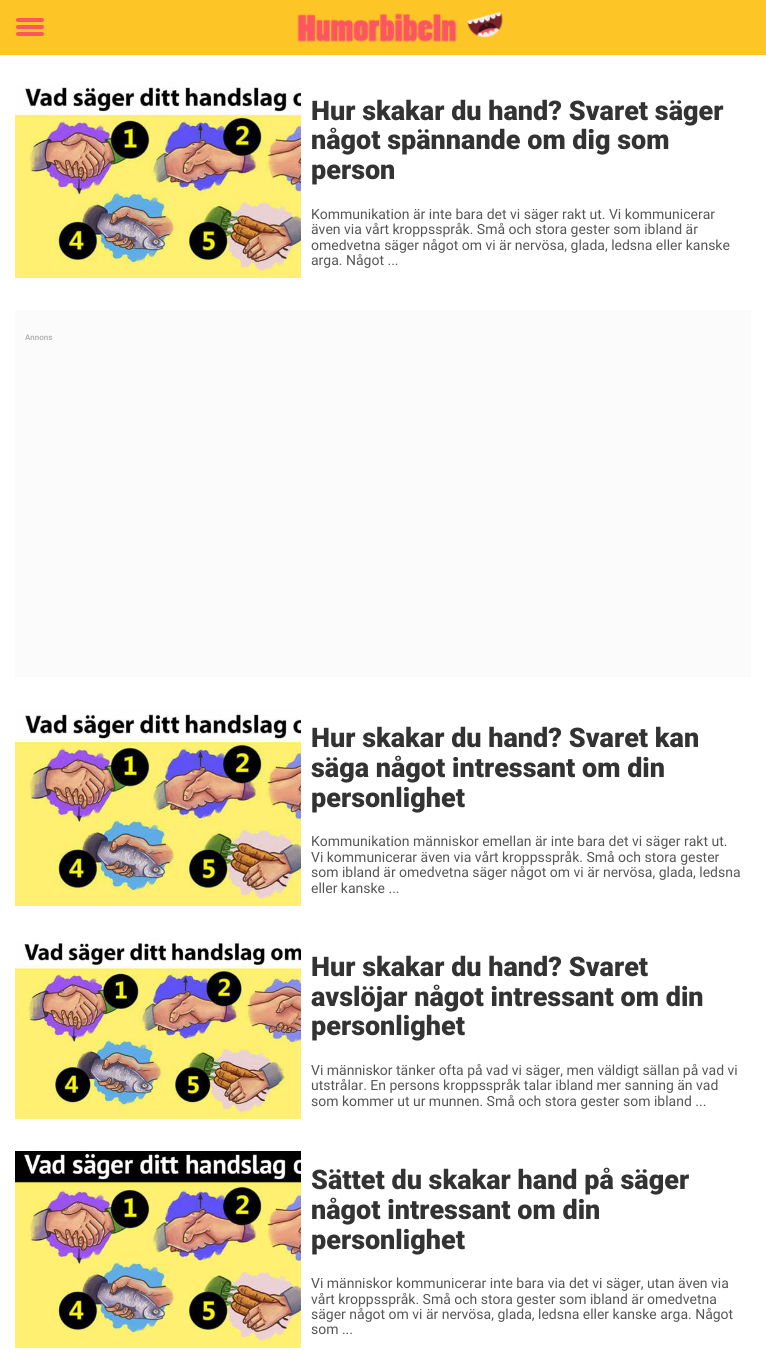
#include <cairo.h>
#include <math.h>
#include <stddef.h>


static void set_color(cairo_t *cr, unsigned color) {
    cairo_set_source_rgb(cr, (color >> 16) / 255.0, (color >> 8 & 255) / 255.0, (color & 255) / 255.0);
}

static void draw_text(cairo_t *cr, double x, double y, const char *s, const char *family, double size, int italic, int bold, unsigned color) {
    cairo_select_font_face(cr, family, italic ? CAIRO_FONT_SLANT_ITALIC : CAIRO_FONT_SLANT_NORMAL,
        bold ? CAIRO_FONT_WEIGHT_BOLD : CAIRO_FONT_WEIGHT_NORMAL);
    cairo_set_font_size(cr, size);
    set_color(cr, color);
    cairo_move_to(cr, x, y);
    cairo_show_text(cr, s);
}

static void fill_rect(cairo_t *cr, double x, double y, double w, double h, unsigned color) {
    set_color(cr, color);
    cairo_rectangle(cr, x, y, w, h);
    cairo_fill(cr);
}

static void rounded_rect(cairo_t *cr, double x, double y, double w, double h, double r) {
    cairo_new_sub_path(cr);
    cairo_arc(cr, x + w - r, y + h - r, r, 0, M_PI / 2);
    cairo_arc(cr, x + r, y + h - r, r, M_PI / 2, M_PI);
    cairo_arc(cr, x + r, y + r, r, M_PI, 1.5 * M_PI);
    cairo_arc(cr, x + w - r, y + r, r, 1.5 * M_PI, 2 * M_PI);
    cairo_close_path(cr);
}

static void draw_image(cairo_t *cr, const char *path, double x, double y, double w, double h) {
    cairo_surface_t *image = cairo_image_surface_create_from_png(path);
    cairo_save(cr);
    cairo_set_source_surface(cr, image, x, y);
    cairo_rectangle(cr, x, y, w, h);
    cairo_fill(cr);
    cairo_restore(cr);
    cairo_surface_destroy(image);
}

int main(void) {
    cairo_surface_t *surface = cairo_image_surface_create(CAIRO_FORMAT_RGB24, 766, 1363);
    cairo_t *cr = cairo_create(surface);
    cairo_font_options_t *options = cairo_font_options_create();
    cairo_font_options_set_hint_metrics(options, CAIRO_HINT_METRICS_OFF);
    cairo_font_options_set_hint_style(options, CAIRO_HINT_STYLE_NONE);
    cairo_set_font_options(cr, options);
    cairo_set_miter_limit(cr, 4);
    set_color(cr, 0xFFFFFF);
    cairo_paint(cr);
    fill_rect(cr, 0, 0, 766, 55, 0xFDC526);
    set_color(cr, 0xFC5660);
    rounded_rect(cr, 16, 18, 28, 4, 2);
    cairo_fill(cr);
    rounded_rect(cr, 16, 25, 28, 4, 2);
    cairo_fill(cr);
    rounded_rect(cr, 16, 32, 28, 4, 2);
    cairo_fill(cr);
    draw_image(cr, "assets/img1.png", 297, 11, 206, 31);
    draw_image(cr, "assets/img2.png", 15, 82, 286, 196);
    draw_text(cr, 311, 120, "Hur skakar du hand? Svaret säger", "Roboto Black", 27, 0, 0, 0x333333);
    draw_text(cr, 311, 149, "något spännande om dig som", "Roboto Black", 27, 0, 0, 0x333333);
    draw_text(cr, 311, 179, "person", "Roboto Black", 27, 0, 0, 0x333333);
    draw_text(cr, 311, 219, "Kommunikation är inte bara det vi säger rakt ut. Vi kommunicerar", "Roboto", 14, 0, 0, 0x555555);
    draw_text(cr, 311, 234, "även via vårt kroppsspråk. Små och stora gester som ibland är", "Roboto", 14, 0, 0, 0x555555);
    draw_text(cr, 311, 250, "omedvetna säger något om vi är nervösa, glada, ledsna eller kanske", "Roboto", 14, 0, 0, 0x555555);
    draw_text(cr, 311, 265, "arga. Något ...", "Roboto", 14, 0, 0, 0x555555);
    fill_rect(cr, 15, 310, 736, 367, 0xFBFBFB);
    draw_text(cr, 25, 340, "Annons", "Roboto Medium", 8, 0, 0, 0xAAAAAA);
    draw_image(cr, "assets/img3.png", 15, 709, 286, 197);
    draw_text(cr, 311, 747, "Hur skakar du hand? Svaret kan", "Roboto Black", 27, 0, 0, 0x333333);
    draw_text(cr, 311, 777, "säga något intressant om din", "Roboto Black", 27, 0, 0, 0x333333);
    draw_text(cr, 311, 807, "personlighet", "Roboto Black", 27, 0, 0, 0x333333);
    draw_text(cr, 311, 846, "Kommunikation människor emellan är inte bara det vi säger rakt ut.", "Roboto", 14, 0, 0, 0x555555);
    draw_text(cr, 311, 862, "Vi kommunicerar även via vårt kroppsspråk. Små och stora gester", "Roboto", 14, 0, 0, 0x555555);
    draw_text(cr, 311, 877, "som ibland är omedvetna säger något om vi är nervösa, glada, ledsna", "Roboto", 14, 0, 0, 0x555555);
    draw_text(cr, 311, 893, "eller kanske ...", "Roboto", 14, 0, 0, 0x555555);
    draw_image(cr, "assets/img4.png", 15, 938, 286, 181);
    draw_text(cr, 311, 976, "Hur skakar du hand? Svaret", "Roboto Black", 27, 0, 0, 0x333333);
    draw_text(cr, 311, 1006, "avslöjar något intressant om din", "Roboto Black", 27, 0, 0, 0x333333);
    draw_text(cr, 311, 1035, "personlighet", "Roboto Black", 27, 0, 0, 0x333333);
    draw_text(cr, 311, 1075, "Vi människor tänker ofta på vad vi säger, men väldigt sällan på vad vi", "Roboto", 14, 0, 0, 0x555555);
    draw_text(cr, 311, 1090, "utstrålar. En persons kroppsspråk talar ibland mer sanning än vad", "Roboto", 14, 0, 0, 0x555555);
    draw_text(cr, 311, 1106, "som kommer ut ur munnen. Små och stora gester som ibland ...", "Roboto", 14, 0, 0, 0x555555);
    draw_image(cr, "assets/img5.png", 15, 1151, 286, 197);
    draw_text(cr, 311, 1189, "Sättet du skakar hand på säger", "Roboto Black", 27, 0, 0, 0x333333);
    draw_text(cr, 311, 1219, "något intressant om din", "Roboto Black", 27, 0, 0, 0x333333);
    draw_text(cr, 311, 1249, "personlighet", "Roboto Black", 27, 0, 0, 0x333333);
    draw_text(cr, 311, 1288, "Vi människor kommunicerar inte bara via det vi säger, utan även via", "Roboto", 14, 0, 0, 0x555555);
    draw_text(cr, 311, 1304, "vårt kroppsspråk. Små och stora gester som ibland är omedvetna", "Roboto", 14, 0, 0, 0x555555);
    draw_text(cr, 311, 1319, "säger något om vi är nervösa, glada, ledsna eller kanske arga. Något", "Roboto", 14, 0, 0, 0x555555);
    draw_text(cr, 311, 1334, "som ...", "Roboto", 14, 0, 0, 0x555555);
    cairo_surface_write_to_png(surface, "output.png");
    cairo_font_options_destroy(options);
    cairo_destroy(cr);
    cairo_surface_destroy(surface);
    return 0;
}
